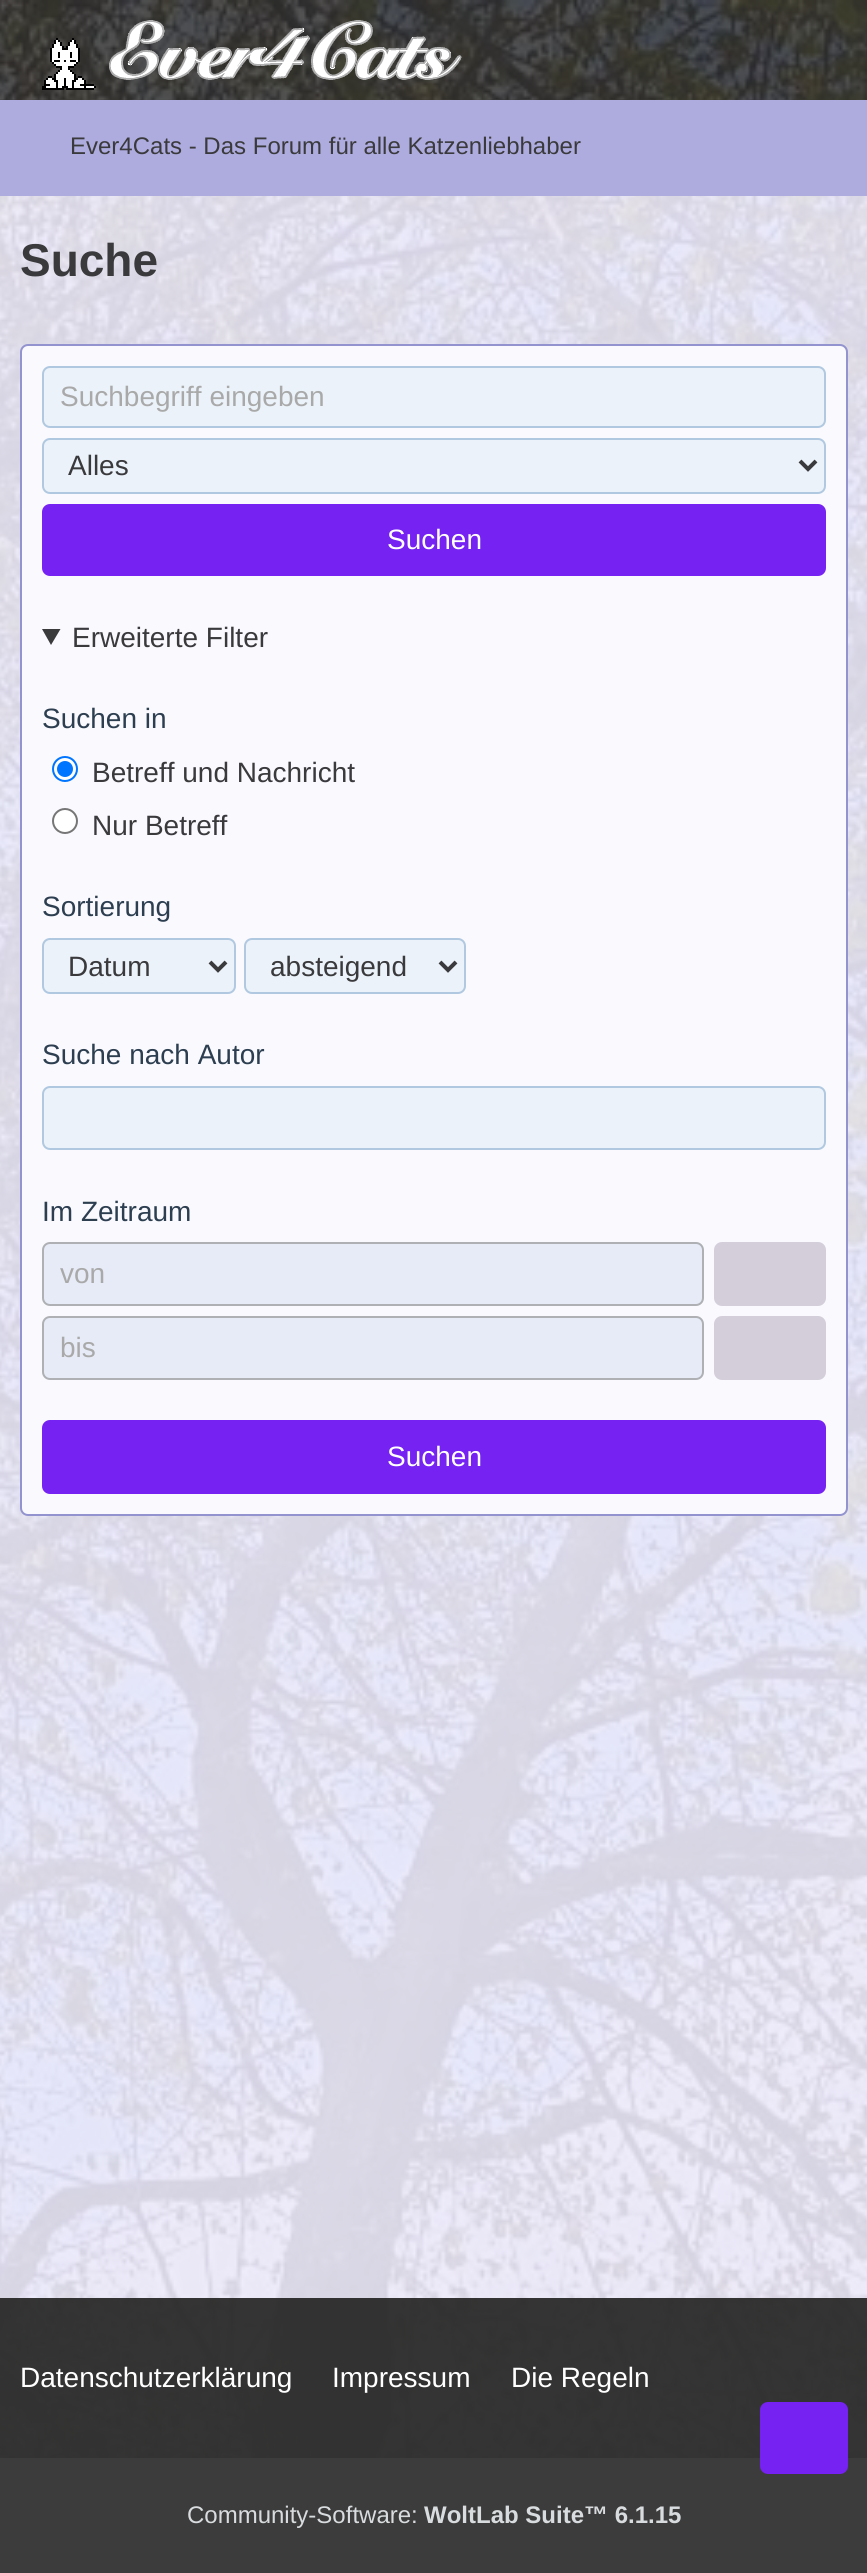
#include <cairo.h>
#include <math.h>
#include <stddef.h>


static void set_color(cairo_t *cr, unsigned color) {
    cairo_set_source_rgb(cr, (color >> 16) / 255.0, (color >> 8 & 255) / 255.0, (color & 255) / 255.0);
}

static void draw_text(cairo_t *cr, double x, double y, const char *s, const char *family, double size, int italic, int bold, unsigned color) {
    cairo_select_font_face(cr, family, italic ? CAIRO_FONT_SLANT_ITALIC : CAIRO_FONT_SLANT_NORMAL,
        bold ? CAIRO_FONT_WEIGHT_BOLD : CAIRO_FONT_WEIGHT_NORMAL);
    cairo_set_font_size(cr, size);
    set_color(cr, color);
    cairo_move_to(cr, x, y);
    cairo_show_text(cr, s);
}

static void fill_rect(cairo_t *cr, double x, double y, double w, double h, unsigned color) {
    set_color(cr, color);
    cairo_rectangle(cr, x, y, w, h);
    cairo_fill(cr);
}

static void rounded_rect(cairo_t *cr, double x, double y, double w, double h, double r) {
    cairo_new_sub_path(cr);
    cairo_arc(cr, x + w - r, y + h - r, r, 0, M_PI / 2);
    cairo_arc(cr, x + r, y + h - r, r, M_PI / 2, M_PI);
    cairo_arc(cr, x + r, y + r, r, M_PI, 1.5 * M_PI);
    cairo_arc(cr, x + w - r, y + r, r, 1.5 * M_PI, 2 * M_PI);
    cairo_close_path(cr);
}

static void draw_image(cairo_t *cr, const char *path, double x, double y, double w, double h) {
    cairo_surface_t *image = cairo_image_surface_create_from_png(path);
    cairo_save(cr);
    cairo_set_source_surface(cr, image, x, y);
    cairo_rectangle(cr, x, y, w, h);
    cairo_fill(cr);
    cairo_restore(cr);
    cairo_surface_destroy(image);
}

int main(void) {
    cairo_surface_t *surface = cairo_image_surface_create(CAIRO_FORMAT_RGB24, 867, 2573);
    cairo_t *cr = cairo_create(surface);
    cairo_font_options_t *options = cairo_font_options_create();
    cairo_font_options_set_hint_metrics(options, CAIRO_HINT_METRICS_OFF);
    cairo_font_options_set_hint_style(options, CAIRO_HINT_STYLE_NONE);
    cairo_set_font_options(cr, options);
    cairo_set_miter_limit(cr, 4);
    set_color(cr, 0xFFFFFF);
    cairo_paint(cr);
    draw_image(cr, "assets/img1.png", 0, 0, 867, 2458);
    cairo_set_source_rgba(cr, 0.2, 0.2, 0.2, 0.6);
    cairo_rectangle(cr, 0, 0, 867, 100);
    cairo_fill(cr);
    cairo_rectangle(cr, 0, 0, 867, 100);
    cairo_fill(cr);
    draw_image(cr, "assets/img2.png", 42, 38, 54, 52);
    draw_image(cr, "assets/img3.png", 109, 20, 353, 60);
    fill_rect(cr, 0, 100, 867, 96, 0xAEACDE);
    draw_text(cr, 70, 154, "Ever4Cats - Das Forum für alle Katzenliebhaber", "Liberation Sans", 24, 0, 0, 0x3A3A3D);
    cairo_set_source_rgba(cr, 0.925, 0.918, 0.984, 0.9);
    cairo_rectangle(cr, 0, 196, 867, 2102);
    cairo_fill(cr);
    draw_text(cr, 20, 276, "Suche", "Liberation Sans", 46, 0, 1, 0x3A3A3D);
    set_color(cr, 0xF9F9FE);
    rounded_rect(cr, 21, 345, 826, 1170, 7);
    cairo_fill_preserve(cr);
    set_color(cr, 0x9393CF);
    cairo_stroke(cr);
    set_color(cr, 0xEBF2F9);
    rounded_rect(cr, 43, 367, 782, 60, 7);
    cairo_fill_preserve(cr);
    set_color(cr, 0xB0C8E0);
    cairo_stroke(cr);
    draw_text(cr, 60, 406, "Suchbegriff eingeben", "Liberation Sans", 28, 0, 0, 0xA9A9A9);
    set_color(cr, 0xEBF2F9);
    rounded_rect(cr, 43, 439, 782, 54, 7);
    cairo_fill_preserve(cr);
    set_color(cr, 0xB0C8E0);
    cairo_stroke(cr);
    cairo_new_path(cr);
    cairo_move_to(cr, 800, 461);
    cairo_line_to(cr, 808, 469);
    cairo_line_to(cr, 816, 461);
    set_color(cr, 0x3A3A3D);
    cairo_set_line_width(cr, 4);
    cairo_stroke(cr);
    draw_text(cr, 68, 475, "Alles", "Liberation Sans", 28, 0, 0, 0x3A3A3D);
    set_color(cr, 0x7522F2);
    rounded_rect(cr, 42, 504, 784, 72, 8);
    cairo_fill(cr);
    draw_text(cr, 387, 549, "Suchen", "Liberation Sans", 28, 0, 0, 0xFFFFFF);
    set_color(cr, 0x3A3A3D);
    cairo_new_path(cr);
    cairo_move_to(cr, 42, 629);
    cairo_line_to(cr, 60.5, 629);
    cairo_line_to(cr, 51, 645);
    cairo_close_path(cr);
    cairo_fill(cr);
    draw_text(cr, 72, 647, "Erweiterte Filter", "Liberation Sans", 28, 0, 0, 0x3A3A3D);
    draw_text(cr, 42, 728, "Suchen in", "Liberation Sans", 28, 0, 0, 0x2C3E50);
    set_color(cr, 0xFFFFFF);
    cairo_new_path(cr);
    cairo_arc(cr, 65, 769, 12, 0, 2 * M_PI);
    cairo_fill_preserve(cr);
    set_color(cr, 0x0075FF);
    cairo_set_line_width(cr, 2);
    cairo_stroke(cr);
    cairo_arc(cr, 65, 769, 8, 0, 2 * M_PI);
    cairo_fill(cr);
    draw_text(cr, 92, 782, "Betreff und Nachricht", "Liberation Sans", 28, 0, 0, 0x3A3A3D);
    set_color(cr, 0xFFFFFF);
    cairo_new_path(cr);
    cairo_arc(cr, 65, 821, 12, 0, 2 * M_PI);
    cairo_fill_preserve(cr);
    set_color(cr, 0x767676);
    cairo_stroke(cr);
    draw_text(cr, 92, 835, "Nur Betreff", "Liberation Sans", 28, 0, 0, 0x3A3A3D);
    draw_text(cr, 42, 916, "Sortierung", "Liberation Sans", 28, 0, 0, 0x2C3E50);
    set_color(cr, 0xEBF2F9);
    rounded_rect(cr, 43, 939, 192, 54, 7);
    cairo_fill_preserve(cr);
    set_color(cr, 0xB0C8E0);
    cairo_stroke(cr);
    cairo_new_path(cr);
    cairo_move_to(cr, 210, 962);
    cairo_line_to(cr, 218, 970);
    cairo_line_to(cr, 226, 962);
    set_color(cr, 0x3A3A3D);
    cairo_set_line_width(cr, 4);
    cairo_stroke(cr);
    draw_text(cr, 68, 976, "Datum", "Liberation Sans", 28, 0, 0, 0x3A3A3D);
    set_color(cr, 0xEBF2F9);
    rounded_rect(cr, 245, 939, 220, 54, 7);
    cairo_fill_preserve(cr);
    set_color(cr, 0xB0C8E0);
    cairo_set_line_width(cr, 2);
    cairo_stroke(cr);
    cairo_new_path(cr);
    cairo_move_to(cr, 440, 962);
    cairo_line_to(cr, 448, 970);
    cairo_line_to(cr, 456, 962);
    set_color(cr, 0x3A3A3D);
    cairo_set_line_width(cr, 4);
    cairo_stroke(cr);
    draw_text(cr, 270, 976, "absteigend", "Liberation Sans", 28, 0, 0, 0x3A3A3D);
    draw_text(cr, 42, 1064, "Suche nach Autor", "Liberation Sans", 28, 0, 0, 0x2C3E50);
    set_color(cr, 0xEBF2F9);
    rounded_rect(cr, 43, 1087, 782, 62, 7);
    cairo_fill_preserve(cr);
    set_color(cr, 0xB0C8E0);
    cairo_set_line_width(cr, 2);
    cairo_stroke(cr);
    draw_text(cr, 42, 1221, "Im Zeitraum", "Liberation Sans", 28, 0, 0, 0x2C3E50);
    set_color(cr, 0xE6EBF7);
    rounded_rect(cr, 43, 1243, 660, 62, 7);
    cairo_fill_preserve(cr);
    set_color(cr, 0xAEB0B3);
    cairo_stroke(cr);
    draw_text(cr, 60, 1283, "von", "Liberation Sans", 28, 0, 0, 0xA9A9A9);
    set_color(cr, 0xD4CEDB);
    rounded_rect(cr, 714, 1242, 112, 64, 8);
    cairo_fill(cr);
    set_color(cr, 0xE6EBF7);
    rounded_rect(cr, 43, 1317, 660, 62, 7);
    cairo_fill_preserve(cr);
    set_color(cr, 0xAEB0B3);
    cairo_stroke(cr);
    draw_text(cr, 60, 1357, "bis", "Liberation Sans", 28, 0, 0, 0xA9A9A9);
    set_color(cr, 0xD4CEDB);
    rounded_rect(cr, 714, 1316, 112, 64, 8);
    cairo_fill(cr);
    set_color(cr, 0x7522F2);
    rounded_rect(cr, 42, 1420, 784, 74, 8);
    cairo_fill(cr);
    draw_text(cr, 387, 1466, "Suchen", "Liberation Sans", 28, 0, 0, 0xFFFFFF);
    cairo_set_source_rgba(cr, 0.2, 0.2, 0.2, 0.99);
    cairo_rectangle(cr, 0, 2298, 867, 160);
    cairo_fill(cr);
    draw_text(cr, 20, 2387, "Datenschutzerklärung", "Liberation Sans", 28, 0, 0, 0xFFFFFF);
    draw_text(cr, 332, 2387, "Impressum", "Liberation Sans", 28, 0, 0, 0xFFFFFF);
    draw_text(cr, 511, 2387, "Die Regeln", "Liberation Sans", 28, 0, 0, 0xFFFFFF);
    fill_rect(cr, 0, 2458, 867, 115, 0x3C3C3C);
    draw_text(cr, 187, 2523, "Community-Software:", "Liberation Sans", 24, 0, 0, 0xD9DCDE);
    draw_text(cr, 424, 2523, "WoltLab Suite™ 6.1.15", "Liberation Sans", 24, 0, 1, 0xD9DCDE);
    set_color(cr, 0x7522F2);
    rounded_rect(cr, 760, 2402, 88, 72, 8);
    cairo_fill(cr);
    cairo_surface_write_to_png(surface, "output.png");
    cairo_font_options_destroy(options);
    cairo_destroy(cr);
    cairo_surface_destroy(surface);
    return 0;
}
